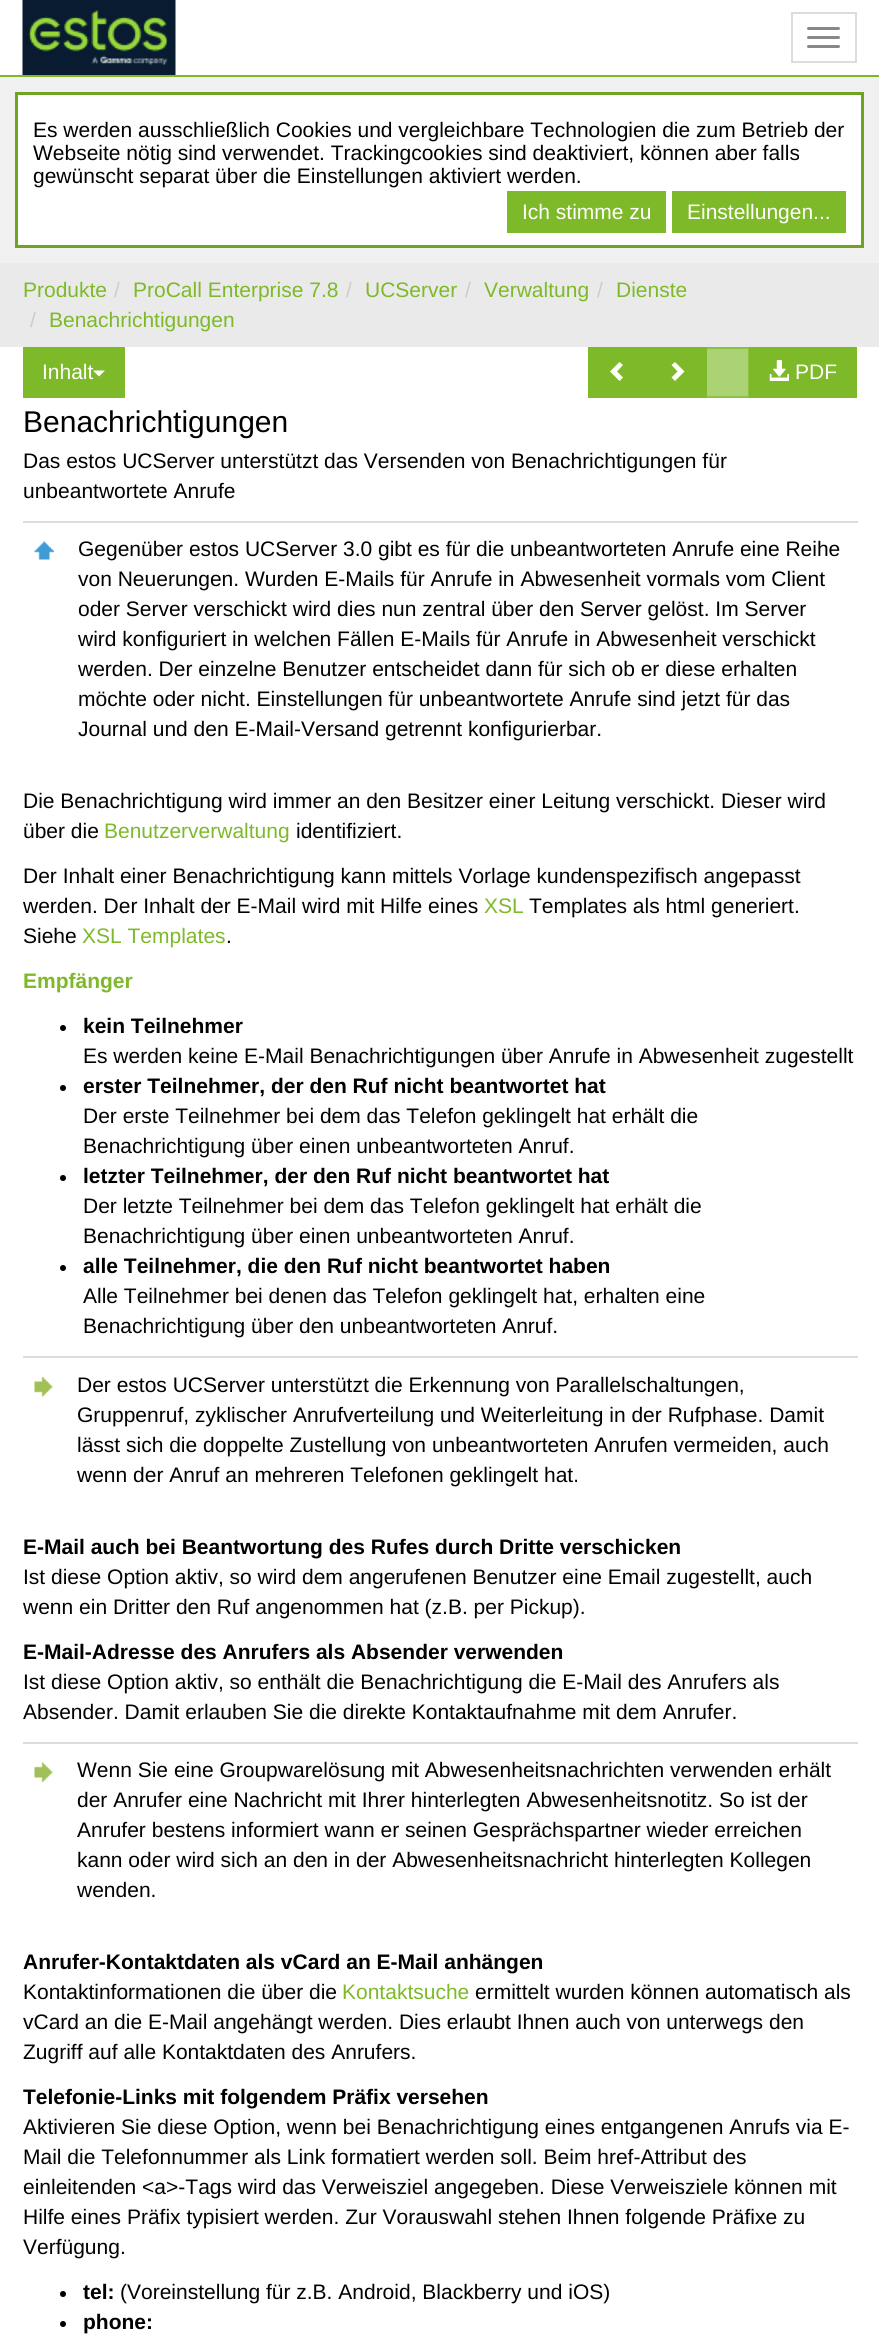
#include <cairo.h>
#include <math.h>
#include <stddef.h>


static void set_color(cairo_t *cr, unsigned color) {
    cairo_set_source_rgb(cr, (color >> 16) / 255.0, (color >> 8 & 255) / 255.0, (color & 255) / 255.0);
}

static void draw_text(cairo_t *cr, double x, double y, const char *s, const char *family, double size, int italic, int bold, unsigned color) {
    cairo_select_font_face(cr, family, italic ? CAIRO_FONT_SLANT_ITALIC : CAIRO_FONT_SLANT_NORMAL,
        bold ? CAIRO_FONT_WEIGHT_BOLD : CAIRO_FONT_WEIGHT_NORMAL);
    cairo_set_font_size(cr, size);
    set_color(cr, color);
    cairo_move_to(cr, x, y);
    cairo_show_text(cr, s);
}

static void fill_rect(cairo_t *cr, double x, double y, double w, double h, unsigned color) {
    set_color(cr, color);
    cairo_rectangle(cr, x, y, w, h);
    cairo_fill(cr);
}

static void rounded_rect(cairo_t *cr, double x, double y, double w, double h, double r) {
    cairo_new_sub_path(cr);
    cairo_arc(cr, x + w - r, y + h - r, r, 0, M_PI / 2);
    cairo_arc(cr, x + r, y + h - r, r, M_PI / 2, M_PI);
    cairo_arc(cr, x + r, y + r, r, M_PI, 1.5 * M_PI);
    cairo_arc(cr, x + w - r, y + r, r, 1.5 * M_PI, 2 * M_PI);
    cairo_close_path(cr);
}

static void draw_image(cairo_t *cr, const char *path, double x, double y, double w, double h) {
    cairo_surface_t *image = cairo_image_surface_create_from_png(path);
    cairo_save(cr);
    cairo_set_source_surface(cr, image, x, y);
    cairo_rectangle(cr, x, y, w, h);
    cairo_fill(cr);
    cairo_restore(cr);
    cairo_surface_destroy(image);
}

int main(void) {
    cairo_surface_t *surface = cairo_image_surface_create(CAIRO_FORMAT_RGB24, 879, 2344);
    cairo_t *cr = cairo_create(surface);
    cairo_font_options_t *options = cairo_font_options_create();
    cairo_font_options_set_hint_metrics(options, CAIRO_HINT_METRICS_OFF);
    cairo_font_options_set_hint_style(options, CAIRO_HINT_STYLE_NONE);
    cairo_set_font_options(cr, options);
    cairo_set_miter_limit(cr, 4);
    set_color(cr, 0xFFFFFF);
    cairo_paint(cr);
    fill_rect(cr, 707, 347, 42, 51, 0xABD273);
    fill_rect(cr, 0, 75, 879, 2, 0x7DB928);
    draw_image(cr, "assets/img1.png", 22, 0, 154, 75);
    cairo_rectangle(cr, 792, 13, 64, 49);
    set_color(cr, 0xDDDDDD);
    cairo_stroke(cr);
    set_color(cr, 0x888888);
    rounded_rect(cr, 807, 27, 33, 3, 1.5);
    cairo_fill(cr);
    rounded_rect(cr, 807, 36, 33, 3, 1.5);
    cairo_fill(cr);
    rounded_rect(cr, 807, 45, 33, 3, 1.5);
    cairo_fill(cr);
    fill_rect(cr, 0, 77, 879, 186, 0xF1F0F0);
    set_color(cr, 0xFFFFFF);
    cairo_rectangle(cr, 16.5, 93.5, 846, 153);
    cairo_fill_preserve(cr);
    set_color(cr, 0x6FA423);
    cairo_set_line_width(cr, 3);
    cairo_stroke(cr);
    draw_text(cr, 33, 137, "Es werden ausschließlich Cookies und vergleichbare Technologien die zum Betrieb der", "Liberation Sans", 21, 0, 0, 0x000000);
    draw_text(cr, 33, 160, "Webseite nötig sind verwendet. Trackingcookies sind deaktiviert, können aber falls", "Liberation Sans", 21, 0, 0, 0x000000);
    draw_text(cr, 33, 183, "gewünscht separat über die Einstellungen aktiviert werden.", "Liberation Sans", 21, 0, 0, 0x000000);
    fill_rect(cr, 507, 191, 159, 42, 0x7DB928);
    draw_text(cr, 522, 219, "Ich stimme zu", "Liberation Sans", 21, 0, 0, 0xFFFFFF);
    fill_rect(cr, 672, 191, 174, 42, 0x7DB928);
    draw_text(cr, 687, 219, "Einstellungen...", "Liberation Sans", 21, 0, 0, 0xFFFFFF);
    fill_rect(cr, 0, 263, 879, 84, 0xEAEAEA);
    draw_text(cr, 23, 297, "Produkte", "Liberation Sans", 21, 0, 0, 0x7DB928);
    draw_text(cr, 114, 297, "/", "Liberation Sans", 21, 0, 0, 0xCCCCCC);
    draw_text(cr, 133, 297, "ProCall Enterprise 7.8", "Liberation Sans", 21, 0, 0, 0x7DB928);
    draw_text(cr, 346, 297, "/", "Liberation Sans", 21, 0, 0, 0xCCCCCC);
    draw_text(cr, 365, 297, "UCServer", "Liberation Sans", 21, 0, 0, 0x7DB928);
    draw_text(cr, 465, 297, "/", "Liberation Sans", 21, 0, 0, 0xCCCCCC);
    draw_text(cr, 484, 297, "Verwaltung", "Liberation Sans", 21, 0, 0, 0x7DB928);
    draw_text(cr, 597, 297, "/", "Liberation Sans", 21, 0, 0, 0xCCCCCC);
    draw_text(cr, 616, 297, "Dienste", "Liberation Sans", 21, 0, 0, 0x7DB928);
    draw_text(cr, 30, 327, "/", "Liberation Sans", 21, 0, 0, 0xCCCCCC);
    draw_text(cr, 49, 327, "Benachrichtigungen", "Liberation Sans", 21, 0, 0, 0x7DB928);
    fill_rect(cr, 23, 347, 102, 51, 0x7DB928);
    draw_text(cr, 42, 379, "Inhalt", "Liberation Sans", 21, 0, 0, 0xFFFFFF);
    cairo_new_path(cr);
    cairo_move_to(cr, 93, 370.5);
    cairo_line_to(cr, 105, 370.5);
    cairo_line_to(cr, 99, 376.5);
    cairo_close_path(cr);
    cairo_fill(cr);
    fill_rect(cr, 588, 347, 119, 51, 0x7DB928);
    set_color(cr, 0xFFFFFF);
    cairo_new_path(cr);
    cairo_move_to(cr, 623, 365);
    cairo_line_to(cr, 617, 371.5);
    cairo_line_to(cr, 623, 377.5);
    cairo_line_to(cr, 619.5, 381);
    cairo_line_to(cr, 610, 371.5);
    cairo_line_to(cr, 619.5, 362);
    cairo_close_path(cr);
    cairo_fill(cr);
    cairo_rectangle(cr, 706, 348, 43, 49);
    cairo_set_source_rgba(cr, 0.49, 0.725, 0.157, 0.65);
    cairo_set_line_width(cr, 2);
    cairo_stroke(cr);
    set_color(cr, 0xFFFFFF);
    cairo_new_path(cr);
    cairo_move_to(cr, 684.5, 371.5);
    cairo_line_to(cr, 675, 381);
    cairo_line_to(cr, 671.5, 377.5);
    cairo_line_to(cr, 677.5, 371.5);
    cairo_line_to(cr, 671.5, 365);
    cairo_line_to(cr, 675, 362);
    cairo_close_path(cr);
    cairo_fill(cr);
    fill_rect(cr, 749, 347, 108, 51, 0x7DB928);
    draw_image(cr, "assets/img2.png", 769, 360, 20, 21);
    draw_text(cr, 795, 379, "PDF", "Liberation Sans", 21, 0, 0, 0xFFFFFF);
    draw_text(cr, 23, 432, "Benachrichtigungen", "Liberation Sans", 30, 0, 0, 0x000000);
    draw_text(cr, 23, 468, "Das estos UCServer unterstützt das Versenden von Benachrichtigungen für", "Liberation Sans", 21, 0, 0, 0x000000);
    draw_text(cr, 23, 498, "unbeantwortete Anrufe", "Liberation Sans", 21, 0, 0, 0x000000);
    draw_image(cr, "assets/img3.png", 34, 541, 20, 19);
    fill_rect(cr, 23, 521, 835, 2, 0xDDDDDD);
    draw_text(cr, 78, 556, "Gegenüber estos UCServer 3.0 gibt es für die unbeantworteten Anrufe eine Reihe", "Liberation Sans", 21, 0, 0, 0x000000);
    draw_text(cr, 78, 586, "von Neuerungen. Wurden E-Mails für Anrufe in Abwesenheit vormals vom Client", "Liberation Sans", 21, 0, 0, 0x000000);
    draw_text(cr, 78, 616, "oder Server verschickt wird dies nun zentral über den Server gelöst. Im Server", "Liberation Sans", 21, 0, 0, 0x000000);
    draw_text(cr, 78, 646, "wird konfiguriert in welchen Fällen E-Mails für Anrufe in Abwesenheit verschickt", "Liberation Sans", 21, 0, 0, 0x000000);
    draw_text(cr, 78, 676, "werden. Der einzelne Benutzer entscheidet dann für sich ob er diese erhalten", "Liberation Sans", 21, 0, 0, 0x000000);
    draw_text(cr, 78, 706, "möchte oder nicht. Einstellungen für unbeantwortete Anrufe sind jetzt für das", "Liberation Sans", 21, 0, 0, 0x000000);
    draw_text(cr, 78, 736, "Journal und den E-Mail-Versand getrennt konfigurierbar.", "Liberation Sans", 21, 0, 0, 0x000000);
    draw_text(cr, 23, 808, "Die Benachrichtigung wird immer an den Besitzer einer Leitung verschickt. Dieser wird", "Liberation Sans", 21, 0, 0, 0x000000);
    draw_text(cr, 23, 838, "über die", "Liberation Sans", 21, 0, 0, 0x000000);
    draw_text(cr, 104, 838, "Benutzerverwaltung", "Liberation Sans", 21, 0, 0, 0x7DB928);
    draw_text(cr, 296, 838, "identifiziert.", "Liberation Sans", 21, 0, 0, 0x000000);
    draw_text(cr, 23, 883, "Der Inhalt einer Benachrichtigung kann mittels Vorlage kundenspezifisch angepasst", "Liberation Sans", 21, 0, 0, 0x000000);
    draw_text(cr, 23, 913, "werden. Der Inhalt der E-Mail wird mit Hilfe eines", "Liberation Sans", 21, 0, 0, 0x000000);
    draw_text(cr, 484, 913, "XSL", "Liberation Sans", 21, 0, 0, 0x7DB928);
    draw_text(cr, 529, 913, "Templates als html generiert.", "Liberation Sans", 21, 0, 0, 0x000000);
    draw_text(cr, 23, 943, "Siehe", "Liberation Sans", 21, 0, 0, 0x000000);
    draw_text(cr, 82, 943, "XSL Templates", "Liberation Sans", 21, 0, 0, 0x7DB928);
    draw_text(cr, 226, 943, ".", "Liberation Sans", 21, 0, 0, 0x000000);
    draw_text(cr, 23, 988, "Empfänger", "Liberation Sans", 21, 0, 1, 0x7DB928);
    set_color(cr, 0x000000);
    cairo_new_path(cr);
    cairo_arc(cr, 63, 1028, 3, 0, 2 * M_PI);
    cairo_fill(cr);
    draw_text(cr, 83, 1033, "kein Teilnehmer", "Liberation Sans", 21, 0, 1, 0x000000);
    draw_text(cr, 83, 1063, "Es werden keine E-Mail Benachrichtigungen über Anrufe in Abwesenheit zugestellt", "Liberation Sans", 21, 0, 0, 0x000000);
    cairo_new_path(cr);
    cairo_arc(cr, 63, 1088, 3, 0, 2 * M_PI);
    cairo_fill(cr);
    draw_text(cr, 83, 1093, "erster Teilnehmer, der den Ruf nicht beantwortet hat", "Liberation Sans", 21, 0, 1, 0x000000);
    draw_text(cr, 83, 1123, "Der erste Teilnehmer bei dem das Telefon geklingelt hat erhält die", "Liberation Sans", 21, 0, 0, 0x000000);
    draw_text(cr, 83, 1153, "Benachrichtigung über einen unbeantworteten Anruf.", "Liberation Sans", 21, 0, 0, 0x000000);
    cairo_new_path(cr);
    cairo_arc(cr, 63, 1178, 3, 0, 2 * M_PI);
    cairo_fill(cr);
    draw_text(cr, 83, 1183, "letzter Teilnehmer, der den Ruf nicht beantwortet hat", "Liberation Sans", 21, 0, 1, 0x000000);
    draw_text(cr, 83, 1213, "Der letzte Teilnehmer bei dem das Telefon geklingelt hat erhält die", "Liberation Sans", 21, 0, 0, 0x000000);
    draw_text(cr, 83, 1243, "Benachrichtigung über einen unbeantworteten Anruf.", "Liberation Sans", 21, 0, 0, 0x000000);
    cairo_new_path(cr);
    cairo_arc(cr, 63, 1268, 3, 0, 2 * M_PI);
    cairo_fill(cr);
    draw_text(cr, 83, 1273, "alle Teilnehmer, die den Ruf nicht beantwortet haben", "Liberation Sans", 21, 0, 1, 0x000000);
    draw_text(cr, 83, 1303, "Alle Teilnehmer bei denen das Telefon geklingelt hat, erhalten eine", "Liberation Sans", 21, 0, 0, 0x000000);
    draw_text(cr, 83, 1333, "Benachrichtigung über den unbeantworteten Anruf.", "Liberation Sans", 21, 0, 0, 0x000000);
    draw_image(cr, "assets/img4.png", 34, 1377, 19, 20);
    fill_rect(cr, 23, 1356, 835, 2, 0xDDDDDD);
    draw_text(cr, 77, 1392, "Der estos UCServer unterstützt die Erkennung von Parallelschaltungen,", "Liberation Sans", 21, 0, 0, 0x000000);
    draw_text(cr, 77, 1422, "Gruppenruf, zyklischer Anrufverteilung und Weiterleitung in der Rufphase. Damit", "Liberation Sans", 21, 0, 0, 0x000000);
    draw_text(cr, 77, 1452, "lässt sich die doppelte Zustellung von unbeantworteten Anrufen vermeiden, auch", "Liberation Sans", 21, 0, 0, 0x000000);
    draw_text(cr, 77, 1482, "wenn der Anruf an mehreren Telefonen geklingelt hat.", "Liberation Sans", 21, 0, 0, 0x000000);
    draw_text(cr, 23, 1554, "E-Mail auch bei Beantwortung des Rufes durch Dritte verschicken", "Liberation Sans", 21, 0, 1, 0x000000);
    draw_text(cr, 23, 1584, "Ist diese Option aktiv, so wird dem angerufenen Benutzer eine Email zugestellt, auch", "Liberation Sans", 21, 0, 0, 0x000000);
    draw_text(cr, 23, 1614, "wenn ein Dritter den Ruf angenommen hat (z.B. per Pickup).", "Liberation Sans", 21, 0, 0, 0x000000);
    draw_text(cr, 23, 1659, "E-Mail-Adresse des Anrufers als Absender verwenden", "Liberation Sans", 21, 0, 1, 0x000000);
    draw_text(cr, 23, 1689, "Ist diese Option aktiv, so enthält die Benachrichtigung die E-Mail des Anrufers als", "Liberation Sans", 21, 0, 0, 0x000000);
    draw_text(cr, 23, 1719, "Absender. Damit erlauben Sie die direkte Kontaktaufnahme mit dem Anrufer.", "Liberation Sans", 21, 0, 0, 0x000000);
    draw_image(cr, "assets/img5.png", 34, 1762, 19, 20);
    fill_rect(cr, 23, 1742, 835, 2, 0xDDDDDD);
    draw_text(cr, 77, 1777, "Wenn Sie eine Groupwarelösung mit Abwesenheitsnachrichten verwenden erhält", "Liberation Sans", 21, 0, 0, 0x000000);
    draw_text(cr, 77, 1807, "der Anrufer eine Nachricht mit Ihrer hinterlegten Abwesenheitsnotitz. So ist der", "Liberation Sans", 21, 0, 0, 0x000000);
    draw_text(cr, 77, 1837, "Anrufer bestens informiert wann er seinen Gesprächspartner wieder erreichen", "Liberation Sans", 21, 0, 0, 0x000000);
    draw_text(cr, 77, 1867, "kann oder wird sich an den in der Abwesenheitsnachricht hinterlegten Kollegen", "Liberation Sans", 21, 0, 0, 0x000000);
    draw_text(cr, 77, 1897, "wenden.", "Liberation Sans", 21, 0, 0, 0x000000);
    draw_text(cr, 23, 1969, "Anrufer-Kontaktdaten als vCard an E-Mail anhängen", "Liberation Sans", 21, 0, 1, 0x000000);
    draw_text(cr, 23, 1999, "Kontaktinformationen die über die", "Liberation Sans", 21, 0, 0, 0x000000);
    draw_text(cr, 342, 1999, "Kontaktsuche", "Liberation Sans", 21, 0, 0, 0x7DB928);
    draw_text(cr, 475, 1999, "ermittelt wurden können automatisch als", "Liberation Sans", 21, 0, 0, 0x000000);
    draw_text(cr, 23, 2029, "vCard an die E-Mail angehängt werden. Dies erlaubt Ihnen auch von unterwegs den", "Liberation Sans", 21, 0, 0, 0x000000);
    draw_text(cr, 23, 2059, "Zugriff auf alle Kontaktdaten des Anrufers.", "Liberation Sans", 21, 0, 0, 0x000000);
    draw_text(cr, 23, 2104, "Telefonie-Links mit folgendem Präfix versehen", "Liberation Sans", 21, 0, 1, 0x000000);
    draw_text(cr, 23, 2134, "Aktivieren Sie diese Option, wenn bei Benachrichtigung eines entgangenen Anrufs via E-", "Liberation Sans", 21, 0, 0, 0x000000);
    draw_text(cr, 23, 2164, "Mail die Telefonnummer als Link formatiert werden soll. Beim href-Attribut des", "Liberation Sans", 21, 0, 0, 0x000000);
    draw_text(cr, 23, 2194, "einleitenden <a>-Tags wird das Verweisziel angegeben. Diese Verweisziele können mit", "Liberation Sans", 21, 0, 0, 0x000000);
    draw_text(cr, 23, 2224, "Hilfe eines Präfix typisiert werden. Zur Vorauswahl stehen Ihnen folgende Präfixe zu", "Liberation Sans", 21, 0, 0, 0x000000);
    draw_text(cr, 23, 2254, "Verfügung.", "Liberation Sans", 21, 0, 0, 0x000000);
    cairo_new_path(cr);
    cairo_arc(cr, 63, 2294, 3, 0, 2 * M_PI);
    cairo_fill(cr);
    draw_text(cr, 83, 2299, "tel:", "Liberation Sans", 21, 0, 1, 0x000000);
    draw_text(cr, 120, 2299, "(Voreinstellung für z.B. Android, Blackberry und iOS)", "Liberation Sans", 21, 0, 0, 0x000000);
    cairo_new_path(cr);
    cairo_arc(cr, 63, 2324, 3, 0, 2 * M_PI);
    cairo_fill(cr);
    draw_text(cr, 83, 2329, "phone:", "Liberation Sans", 21, 0, 1, 0x000000);
    cairo_surface_write_to_png(surface, "output.png");
    cairo_font_options_destroy(options);
    cairo_destroy(cr);
    cairo_surface_destroy(surface);
    return 0;
}
